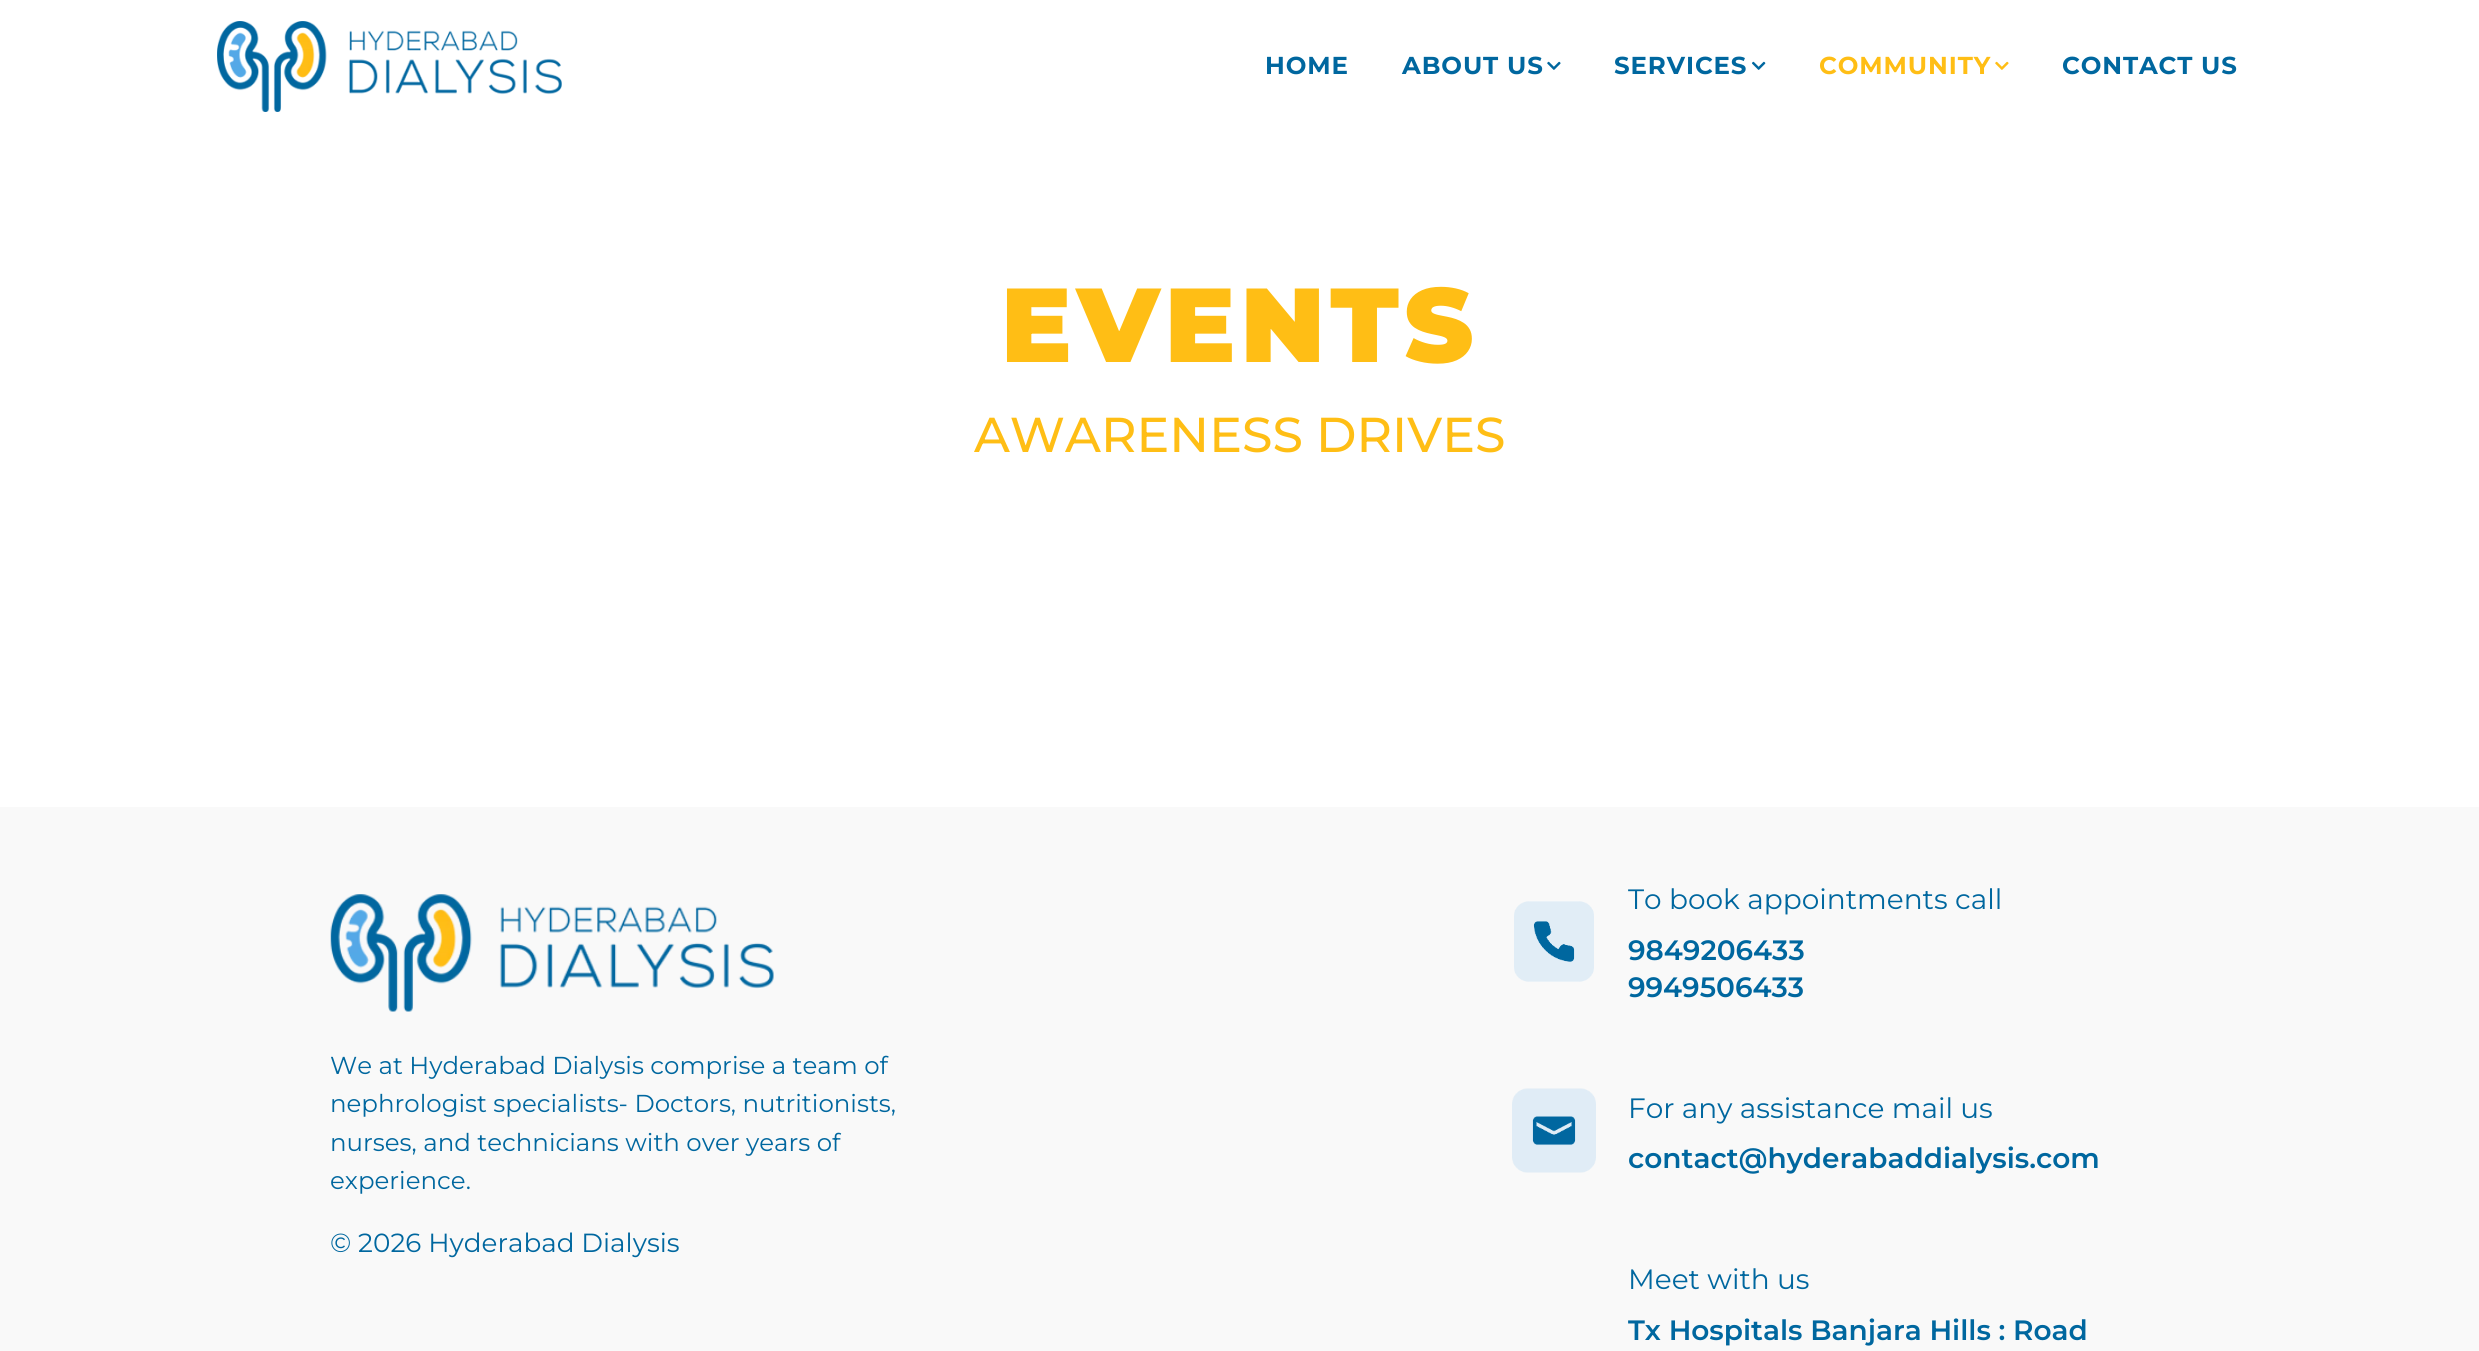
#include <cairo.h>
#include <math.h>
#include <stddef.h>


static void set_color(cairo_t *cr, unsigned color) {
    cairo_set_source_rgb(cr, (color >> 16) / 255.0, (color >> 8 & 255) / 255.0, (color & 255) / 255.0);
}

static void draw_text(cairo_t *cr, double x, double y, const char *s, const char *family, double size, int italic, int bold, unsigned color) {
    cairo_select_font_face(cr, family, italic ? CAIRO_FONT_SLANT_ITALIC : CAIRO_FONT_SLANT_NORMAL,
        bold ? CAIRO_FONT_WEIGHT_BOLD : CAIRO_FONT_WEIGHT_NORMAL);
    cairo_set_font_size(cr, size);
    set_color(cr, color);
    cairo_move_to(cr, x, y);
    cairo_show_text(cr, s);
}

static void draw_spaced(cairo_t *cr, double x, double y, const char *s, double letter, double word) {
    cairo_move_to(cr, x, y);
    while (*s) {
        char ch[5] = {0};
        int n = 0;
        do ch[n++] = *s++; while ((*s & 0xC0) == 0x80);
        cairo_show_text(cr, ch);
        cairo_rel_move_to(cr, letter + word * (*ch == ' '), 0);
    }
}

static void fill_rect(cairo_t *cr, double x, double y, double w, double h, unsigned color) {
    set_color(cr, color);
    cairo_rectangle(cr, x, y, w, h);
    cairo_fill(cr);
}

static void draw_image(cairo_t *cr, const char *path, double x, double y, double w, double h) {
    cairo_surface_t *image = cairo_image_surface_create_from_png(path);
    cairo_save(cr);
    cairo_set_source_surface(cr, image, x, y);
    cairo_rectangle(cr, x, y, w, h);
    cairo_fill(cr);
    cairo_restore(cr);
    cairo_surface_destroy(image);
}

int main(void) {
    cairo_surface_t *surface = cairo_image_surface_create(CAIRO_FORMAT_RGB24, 2479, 1351);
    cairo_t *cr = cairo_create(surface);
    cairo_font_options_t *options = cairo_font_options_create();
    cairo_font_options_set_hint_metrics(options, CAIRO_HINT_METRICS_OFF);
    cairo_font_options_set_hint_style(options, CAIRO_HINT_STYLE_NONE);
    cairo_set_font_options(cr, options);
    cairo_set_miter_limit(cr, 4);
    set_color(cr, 0xFFFFFF);
    cairo_paint(cr);
    draw_image(cr, "assets/img1.png", 217, 21, 345, 91);
    cairo_select_font_face(cr, "Montserrat", CAIRO_FONT_SLANT_NORMAL, CAIRO_FONT_WEIGHT_BOLD);
    cairo_set_font_size(cr, 24.5);
    set_color(cr, 0x00679F);
    draw_spaced(cr, 1265, 74, "HOME", 0.9, 0);
    draw_spaced(cr, 1402, 74, "ABOUT US", 0.9, 0);
    draw_image(cr, "assets/img2.png", 1547, 61, 14, 9);
    draw_spaced(cr, 1614, 74, "SERVICES", 0.9, 0);
    draw_image(cr, "assets/img3.png", 1752, 61, 14, 9);
    set_color(cr, 0xFFBE15);
    draw_spaced(cr, 1819, 74, "COMMUNITY", 0.9, 0);
    draw_image(cr, "assets/img4.png", 1995, 61, 14, 9);
    set_color(cr, 0x00679F);
    draw_spaced(cr, 2062, 74, "CONTACT US", 0.9, 0);
    cairo_select_font_face(cr, "Montserrat Black", CAIRO_FONT_SLANT_NORMAL, CAIRO_FONT_WEIGHT_NORMAL);
    cairo_set_font_size(cr, 105);
    set_color(cr, 0xFFBE15);
    draw_spaced(cr, 1001, 362, "EVENTS", 5.25, 0);
    draw_text(cr, 974, 452, "AWARENESS DRIVES", "Montserrat Medium", 49, 0, 0, 0xFFBE15);
    fill_rect(cr, 0, 807, 2479, 544, 0xF9F9F9);
    draw_image(cr, "assets/img5.png", 330, 894, 444, 118);
    draw_text(cr, 330, 1074, "We at Hyderabad Dialysis comprise a team of", "Montserrat", 24.5, 0, 0, 0x00679F);
    draw_text(cr, 330, 1112, "nephrologist specialists- Doctors, nutritionists,", "Montserrat", 24.5, 0, 0, 0x00679F);
    draw_text(cr, 330, 1151, "nurses, and technicians with over years of", "Montserrat", 24.5, 0, 0, 0x00679F);
    draw_text(cr, 330, 1189, "experience.", "Montserrat", 24.5, 0, 0, 0x00679F);
    draw_text(cr, 330, 1252, "© 2026 Hyderabad Dialysis", "Montserrat", 26.25, 0, 0, 0x00679F);
    draw_image(cr, "assets/img6.png", 1514, 901, 80, 81);
    draw_text(cr, 1628, 909, "To book appointments call", "Montserrat", 28, 0, 0, 0x00679F);
    draw_text(cr, 1628, 960, "9849206433", "Montserrat SemiBold", 28, 0, 0, 0x00679F);
    draw_text(cr, 1628, 997, "9949506433", "Montserrat SemiBold", 28, 0, 0, 0x00679F);
    draw_image(cr, "assets/img7.png", 1512, 1088, 84, 85);
    draw_text(cr, 1628, 1118, "For any assistance mail us", "Montserrat", 28, 0, 0, 0x00679F);
    draw_text(cr, 1628, 1168, "contact@hyderabaddialysis.com", "Montserrat SemiBold", 28, 0, 0, 0x00679F);
    draw_text(cr, 1628, 1289, "Meet with us", "Montserrat", 28, 0, 0, 0x00679F);
    draw_text(cr, 1628, 1340, "Tx Hospitals Banjara Hills : Road", "Montserrat SemiBold", 28, 0, 0, 0x00679F);
    cairo_surface_write_to_png(surface, "output.png");
    cairo_font_options_destroy(options);
    cairo_destroy(cr);
    cairo_surface_destroy(surface);
    return 0;
}
